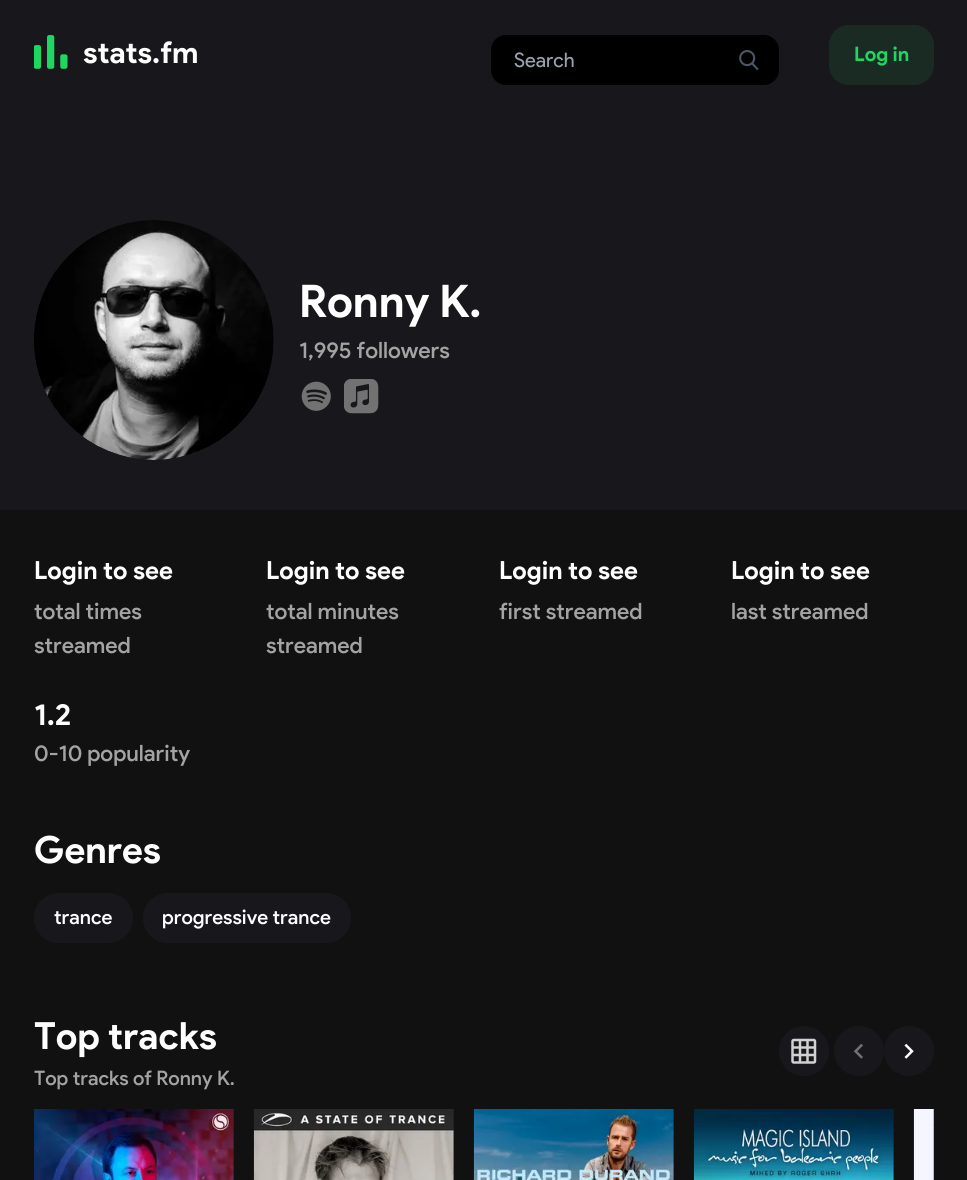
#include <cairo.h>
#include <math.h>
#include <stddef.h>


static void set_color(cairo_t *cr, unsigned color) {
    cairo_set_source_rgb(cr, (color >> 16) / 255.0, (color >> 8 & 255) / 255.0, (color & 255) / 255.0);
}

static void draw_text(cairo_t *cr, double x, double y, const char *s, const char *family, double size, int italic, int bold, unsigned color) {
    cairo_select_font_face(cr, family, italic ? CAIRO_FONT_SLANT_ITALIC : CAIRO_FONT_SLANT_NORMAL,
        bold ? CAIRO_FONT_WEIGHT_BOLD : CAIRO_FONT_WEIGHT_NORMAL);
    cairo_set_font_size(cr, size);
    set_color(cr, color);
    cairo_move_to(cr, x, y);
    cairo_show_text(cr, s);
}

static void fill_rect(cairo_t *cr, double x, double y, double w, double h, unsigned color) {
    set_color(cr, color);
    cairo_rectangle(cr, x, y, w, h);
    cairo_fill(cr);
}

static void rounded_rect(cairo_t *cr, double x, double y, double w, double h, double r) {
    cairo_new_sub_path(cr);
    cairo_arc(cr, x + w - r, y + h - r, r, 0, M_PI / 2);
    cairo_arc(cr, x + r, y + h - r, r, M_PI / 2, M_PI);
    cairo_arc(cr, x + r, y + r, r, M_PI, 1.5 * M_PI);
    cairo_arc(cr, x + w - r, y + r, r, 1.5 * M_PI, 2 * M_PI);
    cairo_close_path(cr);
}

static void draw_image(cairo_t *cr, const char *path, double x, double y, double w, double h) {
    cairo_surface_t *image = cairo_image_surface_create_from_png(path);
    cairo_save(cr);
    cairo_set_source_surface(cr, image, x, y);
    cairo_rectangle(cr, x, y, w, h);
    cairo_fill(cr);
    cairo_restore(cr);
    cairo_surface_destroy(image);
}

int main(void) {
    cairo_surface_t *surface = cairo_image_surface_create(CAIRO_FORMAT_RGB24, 967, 1180);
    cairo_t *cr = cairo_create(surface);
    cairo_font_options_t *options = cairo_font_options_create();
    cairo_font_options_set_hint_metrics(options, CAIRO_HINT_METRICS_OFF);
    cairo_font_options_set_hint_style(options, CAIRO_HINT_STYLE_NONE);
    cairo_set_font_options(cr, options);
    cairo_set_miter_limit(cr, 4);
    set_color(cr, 0x111112);
    cairo_paint(cr);
    fill_rect(cr, 0, 0, 967, 510, 0x18181C);
    draw_image(cr, "assets/img1.png", 34, 35, 34, 34);
    draw_text(cr, 83, 63, "stats.fm", "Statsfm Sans", 30, 0, 1, 0xFFFFFF);
    set_color(cr, 0x000000);
    rounded_rect(cr, 491, 35, 288, 50, 15);
    cairo_fill(cr);
    draw_text(cr, 514, 67, "Search", "Statsfm Sans", 20, 0, 0, 0x9CA3AF);
    draw_image(cr, "assets/img2.png", 739, 50, 20, 20);
    set_color(cr, 0x192B23);
    rounded_rect(cr, 829, 25, 105, 60, 20);
    cairo_fill(cr);
    draw_text(cr, 854, 61, "Log in", "Statsfm Sans", 20, 0, 1, 0x1ED760);
    draw_image(cr, "assets/img3.png", 34, 220, 240, 240);
    draw_text(cr, 299, 317, "Ronny K.", "Statsfm Sans", 45, 0, 1, 0xFFFFFF);
    draw_text(cr, 299, 358, "1,995 followers", "Statsfm Sans Medium", 22.5, 0, 0, 0xA3A3A3);
    draw_image(cr, "assets/img4.png", 301, 381, 30, 30);
    draw_image(cr, "assets/img5.png", 344, 379, 35, 35);
    draw_text(cr, 34, 579, "Login to see", "Statsfm Sans", 25, 0, 1, 0xFFFFFF);
    draw_text(cr, 34, 619, "total times", "Statsfm Sans Medium", 22.5, 0, 0, 0xA3A3A3);
    draw_text(cr, 34, 653, "streamed", "Statsfm Sans Medium", 22.5, 0, 0, 0xA3A3A3);
    draw_text(cr, 266, 579, "Login to see", "Statsfm Sans", 25, 0, 1, 0xFFFFFF);
    draw_text(cr, 266, 619, "total minutes", "Statsfm Sans Medium", 22.5, 0, 0, 0xA3A3A3);
    draw_text(cr, 266, 653, "streamed", "Statsfm Sans Medium", 22.5, 0, 0, 0xA3A3A3);
    draw_text(cr, 499, 579, "Login to see", "Statsfm Sans", 25, 0, 1, 0xFFFFFF);
    draw_text(cr, 499, 619, "first streamed", "Statsfm Sans Medium", 22.5, 0, 0, 0xA3A3A3);
    draw_text(cr, 731, 579, "Login to see", "Statsfm Sans", 25, 0, 1, 0xFFFFFF);
    draw_text(cr, 731, 619, "last streamed", "Statsfm Sans Medium", 22.5, 0, 0, 0xA3A3A3);
    draw_text(cr, 34, 725, "1.2", "Statsfm Sans", 30, 0, 1, 0xFFFFFF);
    draw_text(cr, 34, 761, "0-10 popularity", "Statsfm Sans Medium", 22.5, 0, 0, 0xA3A3A3);
    draw_text(cr, 34, 863, "Genres", "Statsfm Sans", 37.5, 0, 1, 0xFFFFFF);
    set_color(cr, 0x18181C);
    rounded_rect(cr, 34, 893, 99, 50, 25);
    cairo_fill(cr);
    draw_text(cr, 54, 924, "trance", "Statsfm Sans Medium", 20, 0, 0, 0xFFFFFF);
    set_color(cr, 0x18181C);
    rounded_rect(cr, 143, 893, 208, 50, 25);
    cairo_fill(cr);
    draw_text(cr, 162, 924, "progressive trance", "Statsfm Sans Medium", 20, 0, 0, 0xFFFFFF);
    draw_text(cr, 34, 1049, "Top tracks", "Statsfm Sans", 37.5, 0, 1, 0xFFFFFF);
    draw_text(cr, 34, 1085, "Top tracks of Ronny K.", "Statsfm Sans Medium", 20, 0, 0, 0xA3A3A3);
    set_color(cr, 0x18181C);
    cairo_new_path(cr);
    cairo_arc(cr, 804, 1051, 25, 0, 2 * M_PI);
    cairo_fill(cr);
    draw_image(cr, "assets/img6.png", 791, 1038, 26, 26);
    cairo_arc(cr, 859, 1051, 25, 0, 2 * M_PI);
    cairo_fill(cr);
    draw_image(cr, "assets/img7.png", 853, 1043, 10, 16);
    cairo_arc(cr, 909, 1051, 25, 0, 2 * M_PI);
    cairo_fill(cr);
    draw_image(cr, "assets/img8.png", 904, 1043, 10, 16);
    fill_rect(cr, 233, 1109, 1, 71, 0x18181C);
    draw_image(cr, "assets/img9.png", 34, 1109, 200, 71);
    fill_rect(cr, 453, 1109, 1, 71, 0x18181C);
    draw_image(cr, "assets/img10.png", 253, 1109, 201, 71);
    fill_rect(cr, 673, 1109, 1, 71, 0x18181C);
    draw_image(cr, "assets/img11.png", 473, 1109, 201, 71);
    fill_rect(cr, 893, 1109, 1, 71, 0x18181C);
    draw_image(cr, "assets/img12.png", 693, 1109, 201, 71);
    draw_image(cr, "assets/img13.png", 913, 1109, 21, 71);
    cairo_surface_write_to_png(surface, "output.png");
    cairo_font_options_destroy(options);
    cairo_destroy(cr);
    cairo_surface_destroy(surface);
    return 0;
}
